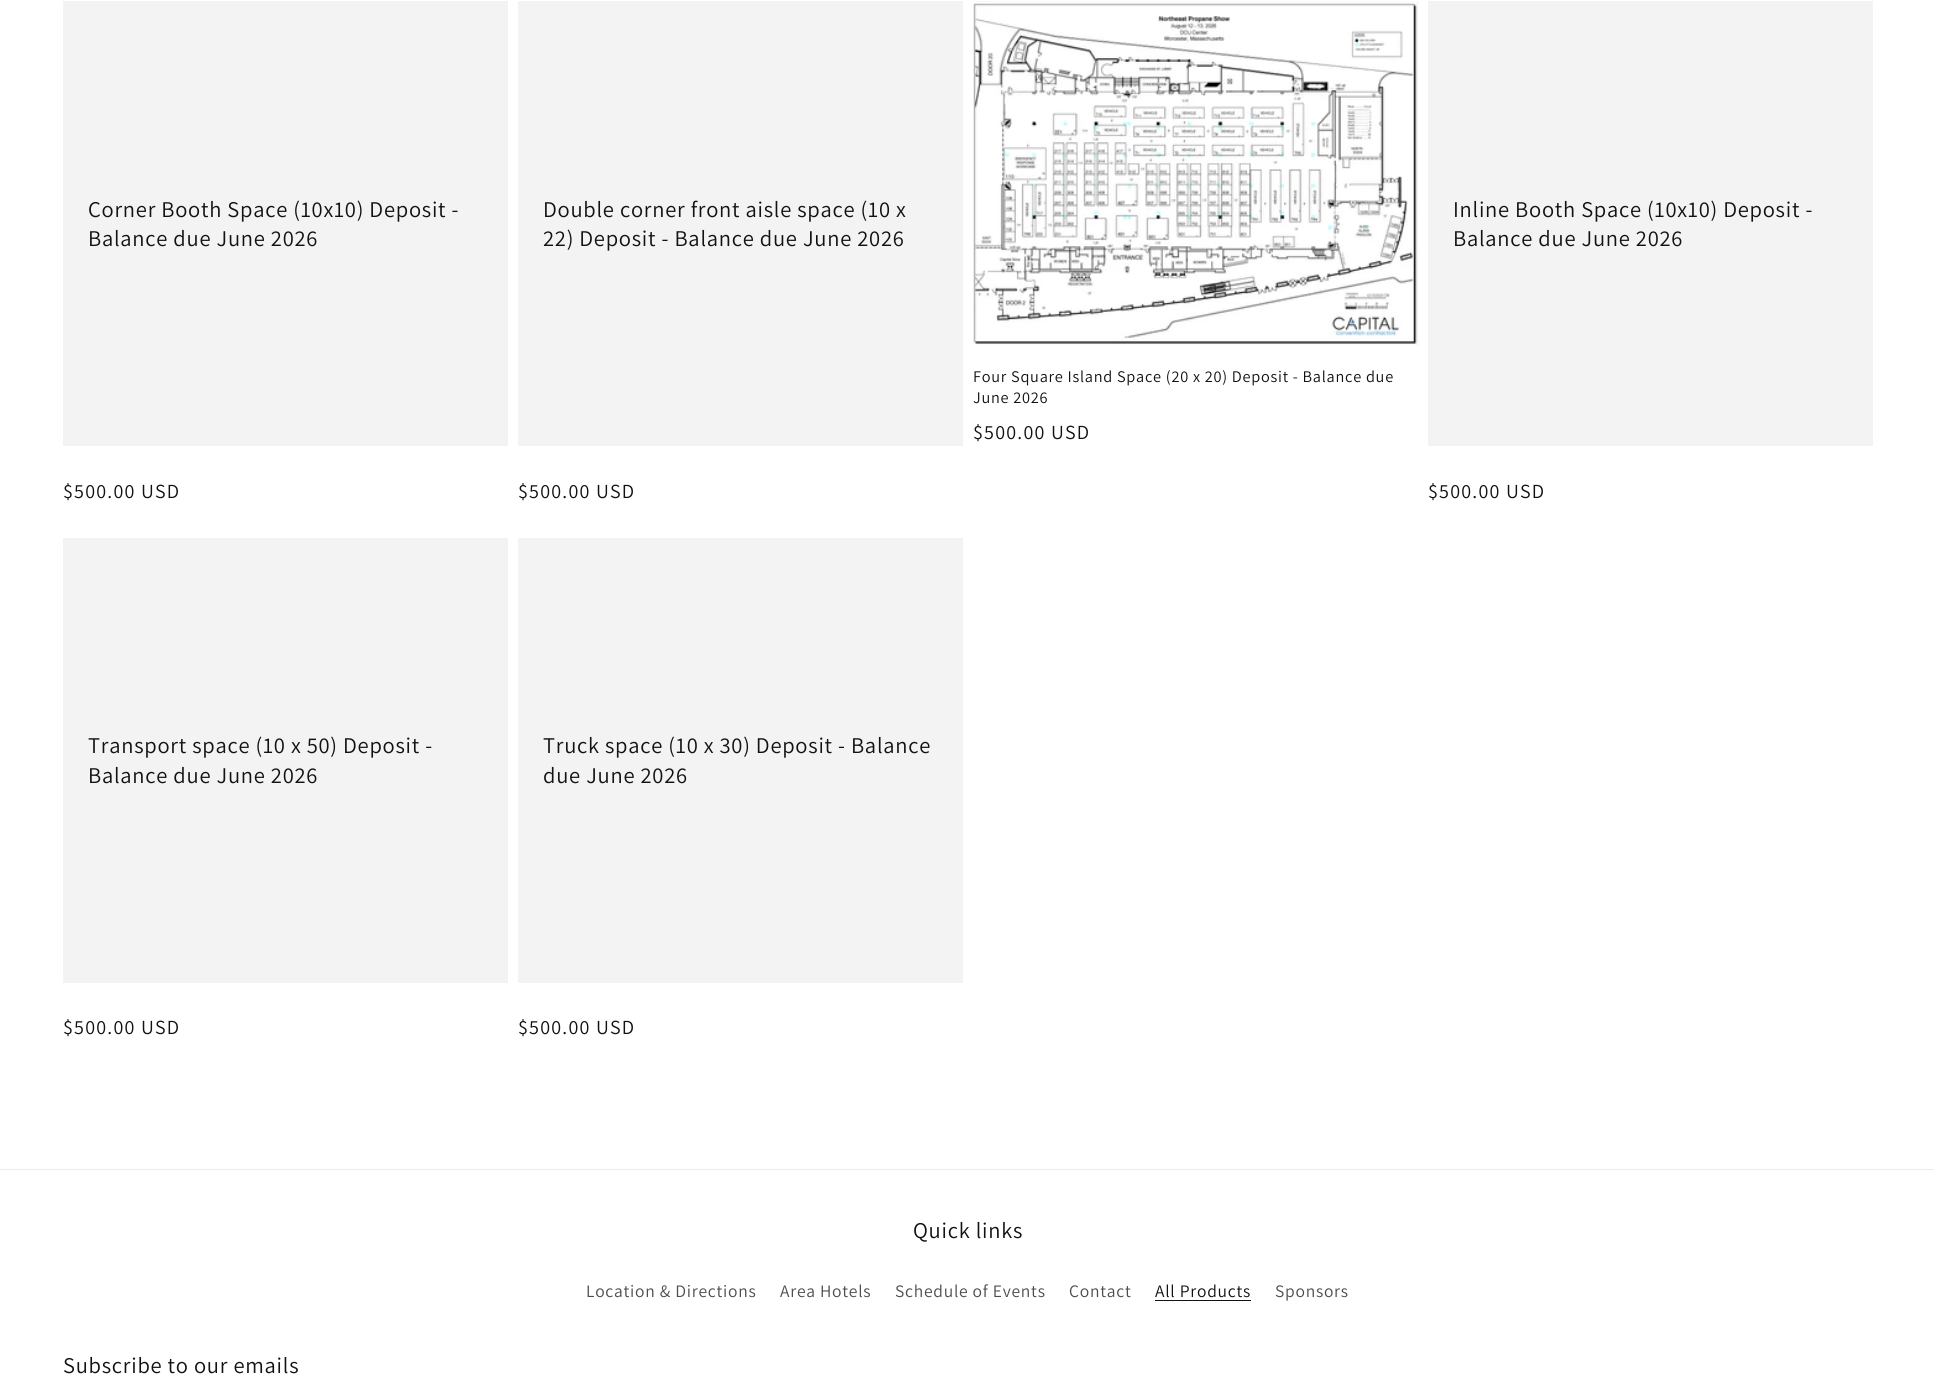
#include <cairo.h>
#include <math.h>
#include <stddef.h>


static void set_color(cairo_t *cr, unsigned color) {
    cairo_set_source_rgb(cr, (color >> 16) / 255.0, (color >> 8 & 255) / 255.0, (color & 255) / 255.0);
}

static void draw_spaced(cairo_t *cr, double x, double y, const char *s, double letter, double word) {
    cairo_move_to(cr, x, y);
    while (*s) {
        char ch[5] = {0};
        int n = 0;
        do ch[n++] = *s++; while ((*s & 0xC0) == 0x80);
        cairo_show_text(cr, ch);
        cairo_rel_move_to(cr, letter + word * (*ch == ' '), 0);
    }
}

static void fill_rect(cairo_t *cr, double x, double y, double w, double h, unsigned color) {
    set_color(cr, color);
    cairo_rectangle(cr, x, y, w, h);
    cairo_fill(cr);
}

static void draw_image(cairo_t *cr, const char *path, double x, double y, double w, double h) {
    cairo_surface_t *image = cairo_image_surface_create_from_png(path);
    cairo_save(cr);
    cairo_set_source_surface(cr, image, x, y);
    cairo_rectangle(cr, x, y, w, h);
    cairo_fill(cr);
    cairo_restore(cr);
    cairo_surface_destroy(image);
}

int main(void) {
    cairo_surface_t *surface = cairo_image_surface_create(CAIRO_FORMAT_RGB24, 1934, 1394);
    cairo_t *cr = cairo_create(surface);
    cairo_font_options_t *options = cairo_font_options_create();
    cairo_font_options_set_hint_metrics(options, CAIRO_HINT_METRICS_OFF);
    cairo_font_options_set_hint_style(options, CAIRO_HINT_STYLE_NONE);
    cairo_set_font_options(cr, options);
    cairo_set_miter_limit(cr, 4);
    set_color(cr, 0xFFFFFF);
    cairo_paint(cr);
    fill_rect(cr, 63, 1, 445, 445, 0xF3F3F3);
    cairo_select_font_face(cr, "Assistant", CAIRO_FONT_SLANT_NORMAL, CAIRO_FONT_WEIGHT_NORMAL);
    cairo_set_font_size(cr, 22.5);
    set_color(cr, 0x121212);
    draw_spaced(cr, 88, 217, "Corner Booth Space (10x10) Deposit -", 0.75, 0);
    draw_spaced(cr, 88, 246, "Balance due June 2026", 0.75, 0);
    cairo_set_font_size(cr, 20);
    draw_spaced(cr, 63, 498, "$500.00 USD", 1.25, 0);
    fill_rect(cr, 518, 1, 445, 445, 0xF3F3F3);
    cairo_set_font_size(cr, 22.5);
    set_color(cr, 0x121212);
    draw_spaced(cr, 543, 217, "Double corner front aisle space (10 x", 0.75, 0);
    draw_spaced(cr, 543, 246, "22) Deposit - Balance due June 2026", 0.75, 0);
    cairo_set_font_size(cr, 20);
    draw_spaced(cr, 518, 498, "$500.00 USD", 1.25, 0);
    fill_rect(cr, 973, 1, 445, 345, 0xF3F3F3);
    draw_image(cr, "assets/img1.png", 973, 1, 444, 345);
    cairo_set_font_size(cr, 16.25);
    set_color(cr, 0x121212);
    draw_spaced(cr, 973, 382, "Four Square Island Space (20 x 20) Deposit - Balance due", 0.75, 0);
    draw_spaced(cr, 973, 403, "June 2026", 0.75, 0);
    cairo_set_font_size(cr, 20);
    draw_spaced(cr, 973, 439, "$500.00 USD", 1.25, 0);
    fill_rect(cr, 1428, 1, 445, 445, 0xF3F3F3);
    cairo_set_font_size(cr, 22.5);
    set_color(cr, 0x121212);
    draw_spaced(cr, 1453, 217, "Inline Booth Space (10x10) Deposit -", 0.75, 0);
    draw_spaced(cr, 1453, 246, "Balance due June 2026", 0.75, 0);
    cairo_set_font_size(cr, 20);
    draw_spaced(cr, 1428, 498, "$500.00 USD", 1.25, 0);
    fill_rect(cr, 63, 538, 445, 445, 0xF3F3F3);
    cairo_set_font_size(cr, 22.5);
    set_color(cr, 0x121212);
    draw_spaced(cr, 88, 753, "Transport space (10 x 50) Deposit -", 0.75, 0);
    draw_spaced(cr, 88, 783, "Balance due June 2026", 0.75, 0);
    cairo_set_font_size(cr, 20);
    draw_spaced(cr, 63, 1034, "$500.00 USD", 1.25, 0);
    fill_rect(cr, 518, 538, 445, 445, 0xF3F3F3);
    cairo_set_font_size(cr, 22.5);
    set_color(cr, 0x121212);
    draw_spaced(cr, 543, 753, "Truck space (10 x 30) Deposit - Balance", 0.75, 0);
    draw_spaced(cr, 543, 783, "due June 2026", 0.75, 0);
    cairo_set_font_size(cr, 20);
    draw_spaced(cr, 518, 1034, "$500.00 USD", 1.25, 0);
    fill_rect(cr, 0, 1169, 1934, 1, 0xECECEC);
    cairo_set_font_size(cr, 22.5);
    set_color(cr, 0x121212);
    draw_spaced(cr, 913, 1238, "Quick links", 0.75, 0);
    cairo_set_font_size(cr, 17.5);
    set_color(cr, 0x4D4D4D);
    draw_spaced(cr, 586, 1297, "Location & Directions", 0.75, 0);
    draw_spaced(cr, 780, 1297, "Area Hotels", 0.75, 0);
    draw_spaced(cr, 895, 1297, "Schedule of Events", 0.75, 0);
    draw_spaced(cr, 1069, 1297, "Contact", 0.75, 0);
    set_color(cr, 0x121212);
    draw_spaced(cr, 1155, 1297, "All Products", 0.75, 0);
    fill_rect(cr, 1155, 1300, 96, 1, 0x121212);
    set_color(cr, 0x4D4D4D);
    draw_spaced(cr, 1275, 1297, "Sponsors", 0.75, 0);
    cairo_set_font_size(cr, 22.5);
    set_color(cr, 0x121212);
    draw_spaced(cr, 63, 1373, "Subscribe to our emails", 0.75, 0);
    cairo_surface_write_to_png(surface, "output.png");
    cairo_font_options_destroy(options);
    cairo_destroy(cr);
    cairo_surface_destroy(surface);
    return 0;
}
